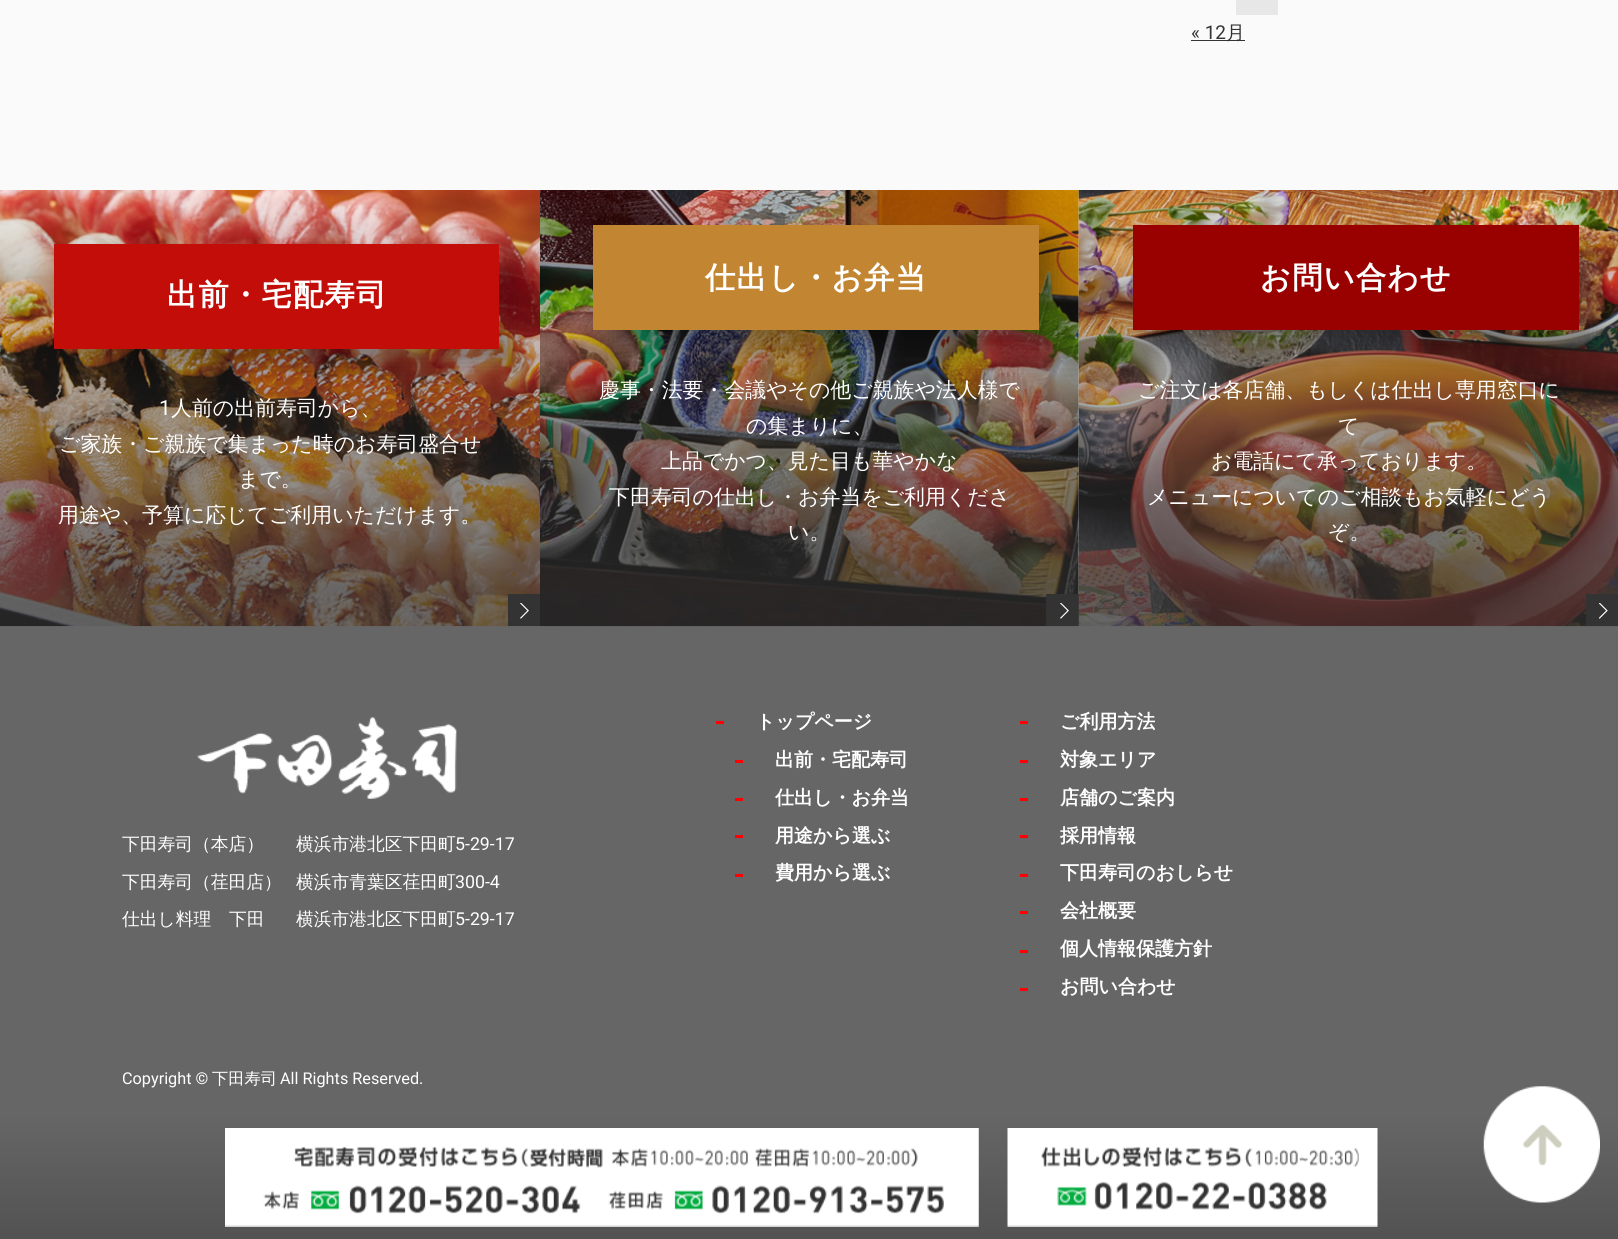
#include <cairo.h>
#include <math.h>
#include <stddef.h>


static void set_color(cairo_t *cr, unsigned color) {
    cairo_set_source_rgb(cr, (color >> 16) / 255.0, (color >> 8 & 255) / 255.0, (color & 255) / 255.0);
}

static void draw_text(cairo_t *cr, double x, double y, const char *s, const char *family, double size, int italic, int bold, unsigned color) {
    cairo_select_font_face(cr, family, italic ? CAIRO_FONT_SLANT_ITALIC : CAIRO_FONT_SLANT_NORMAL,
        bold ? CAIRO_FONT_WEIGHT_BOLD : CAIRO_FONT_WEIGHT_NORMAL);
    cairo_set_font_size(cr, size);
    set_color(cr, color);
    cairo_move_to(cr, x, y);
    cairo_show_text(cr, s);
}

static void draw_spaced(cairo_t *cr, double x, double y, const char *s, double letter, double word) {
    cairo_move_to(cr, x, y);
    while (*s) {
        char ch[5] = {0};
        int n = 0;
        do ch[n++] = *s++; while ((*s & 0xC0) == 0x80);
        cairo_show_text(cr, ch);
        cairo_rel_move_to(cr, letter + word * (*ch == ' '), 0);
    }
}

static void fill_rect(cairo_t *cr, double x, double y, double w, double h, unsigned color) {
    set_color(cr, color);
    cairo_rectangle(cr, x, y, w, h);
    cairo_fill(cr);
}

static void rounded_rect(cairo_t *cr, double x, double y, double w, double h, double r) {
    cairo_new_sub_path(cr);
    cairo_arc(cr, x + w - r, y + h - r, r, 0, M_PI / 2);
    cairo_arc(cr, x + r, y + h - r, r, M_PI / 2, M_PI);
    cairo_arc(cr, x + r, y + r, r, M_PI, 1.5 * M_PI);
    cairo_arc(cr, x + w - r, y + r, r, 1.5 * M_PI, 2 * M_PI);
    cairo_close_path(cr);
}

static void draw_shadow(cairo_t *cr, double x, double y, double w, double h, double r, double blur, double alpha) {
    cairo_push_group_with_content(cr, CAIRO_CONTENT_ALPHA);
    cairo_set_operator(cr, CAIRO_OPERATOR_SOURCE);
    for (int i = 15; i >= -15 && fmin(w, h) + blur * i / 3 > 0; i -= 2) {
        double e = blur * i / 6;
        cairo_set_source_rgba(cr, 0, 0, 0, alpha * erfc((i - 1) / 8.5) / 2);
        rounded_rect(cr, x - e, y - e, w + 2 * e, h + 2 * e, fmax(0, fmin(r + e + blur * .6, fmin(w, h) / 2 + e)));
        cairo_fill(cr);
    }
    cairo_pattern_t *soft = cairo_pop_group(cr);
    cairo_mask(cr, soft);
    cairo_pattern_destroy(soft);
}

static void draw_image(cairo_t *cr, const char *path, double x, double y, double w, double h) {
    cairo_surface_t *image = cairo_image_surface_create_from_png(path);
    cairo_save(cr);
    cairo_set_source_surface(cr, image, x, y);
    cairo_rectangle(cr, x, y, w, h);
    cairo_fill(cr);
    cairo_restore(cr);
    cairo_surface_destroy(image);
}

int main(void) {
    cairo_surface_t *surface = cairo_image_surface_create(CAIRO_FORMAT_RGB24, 1618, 1239);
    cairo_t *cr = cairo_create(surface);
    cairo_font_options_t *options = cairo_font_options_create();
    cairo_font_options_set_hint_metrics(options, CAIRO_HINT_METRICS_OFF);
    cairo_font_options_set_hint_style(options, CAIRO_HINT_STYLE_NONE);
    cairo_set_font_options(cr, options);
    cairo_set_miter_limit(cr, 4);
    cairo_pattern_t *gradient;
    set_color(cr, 0xFFFFFF);
    cairo_paint(cr);
    fill_rect(cr, 0, 0, 1618, 190, 0xFAFAFA);
    fill_rect(cr, 1236, 0, 42, 15, 0xE7E7E7);
    draw_text(cr, 1191, 39, "« 12", "Roboto", 19, 0, 0, 0x333333);
    fill_rect(cr, 1191, 40, 54, 1, 0x333333);
    draw_text(cr, 1226, 39, "月", "WenQuanYi Zen Hei Medium", 19, 0, 0, 0x333333);
    fill_rect(cr, 0, 626, 1618, 489, 0x666666);
    draw_image(cr, "assets/img1.png", 0, 190, 540, 437);
    set_color(cr, 0x000000);
    draw_shadow(cr, 71, 261, 445, 105, 0, 12.5, 0.3);
    fill_rect(cr, 54, 244, 445, 105, 0xC20D08);
    cairo_select_font_face(cr, "WenQuanYi Zen Hei", CAIRO_FONT_SLANT_NORMAL, CAIRO_FONT_WEIGHT_BOLD);
    cairo_set_font_size(cr, 30.25);
    set_color(cr, 0xFFFFFF);
    draw_spaced(cr, 167, 305, "出前・宅配寿司", 1.25, 0);
    draw_text(cr, 159, 415, "1", "Roboto", 20.9, 0, 0, 0xFFFFFF);
    draw_text(cr, 171, 415, "人前の出前寿司から、", "WenQuanYi Zen Hei Medium", 20.9, 0, 0, 0xFFFFFF);
    draw_text(cr, 59, 451, "ご家族・ご親族で集まった時のお寿司盛合せ", "WenQuanYi Zen Hei Medium", 20.9, 0, 0, 0xFFFFFF);
    draw_text(cr, 238, 486, "まで。", "WenQuanYi Zen Hei Medium", 20.9, 0, 0, 0xFFFFFF);
    draw_text(cr, 58, 522, "用途や、予算に応じてご利用いただけます。", "WenQuanYi Zen Hei Medium", 20.9, 0, 0, 0xFFFFFF);
    fill_rect(cr, 508, 594, 32, 32, 0x333333);
    draw_image(cr, "assets/img2.png", 520, 603, 9, 16);
    draw_image(cr, "assets/img3.png", 540, 190, 539, 437);
    set_color(cr, 0x000000);
    draw_shadow(cr, 610, 243, 446, 105, 0, 12.5, 0.3);
    fill_rect(cr, 593, 225, 446, 105, 0xC28532);
    cairo_select_font_face(cr, "WenQuanYi Zen Hei", CAIRO_FONT_SLANT_NORMAL, CAIRO_FONT_WEIGHT_BOLD);
    cairo_set_font_size(cr, 30.25);
    set_color(cr, 0xFFFFFF);
    draw_spaced(cr, 705, 288, "仕出し・お弁当", 1.25, 0);
    draw_text(cr, 599, 397, "慶事・法要・会議やその他ご親族や法人様で", "WenQuanYi Zen Hei Medium", 20.9, 0, 0, 0xFFFFFF);
    draw_text(cr, 746, 433, "の集まりに、", "WenQuanYi Zen Hei Medium", 20.9, 0, 0, 0xFFFFFF);
    draw_text(cr, 661, 468, "上品でかつ、見た目も華やかな", "WenQuanYi Zen Hei Medium", 20.9, 0, 0, 0xFFFFFF);
    draw_text(cr, 609, 504, "下田寿司の仕出し・お弁当をご利用くださ", "WenQuanYi Zen Hei Medium", 20.9, 0, 0, 0xFFFFFF);
    draw_text(cr, 788, 539, "い。", "WenQuanYi Zen Hei Medium", 20.9, 0, 0, 0xFFFFFF);
    fill_rect(cr, 1046, 594, 33, 32, 0x333333);
    draw_image(cr, "assets/img2.png", 1060, 603, 9, 16);
    draw_image(cr, "assets/img4.png", 1078, 190, 540, 437);
    set_color(cr, 0x000000);
    draw_shadow(cr, 1150, 243, 446, 105, 0, 12.5, 0.3);
    fill_rect(cr, 1133, 225, 446, 105, 0x990000);
    cairo_select_font_face(cr, "WenQuanYi Zen Hei", CAIRO_FONT_SLANT_NORMAL, CAIRO_FONT_WEIGHT_BOLD);
    cairo_set_font_size(cr, 30.25);
    set_color(cr, 0xFFFFFF);
    draw_spaced(cr, 1260, 288, "お問い合わせ", 1.25, 0);
    draw_text(cr, 1138, 397, "ご注文は各店舗、もしくは仕出し専用窓口に", "WenQuanYi Zen Hei Medium", 20.9, 0, 0, 0xFFFFFF);
    draw_text(cr, 1338, 433, "て", "WenQuanYi Zen Hei Medium", 20.9, 0, 0, 0xFFFFFF);
    draw_text(cr, 1211, 468, "お電話にて承っております。", "WenQuanYi Zen Hei Medium", 20.9, 0, 0, 0xFFFFFF);
    draw_text(cr, 1147, 504, "メニューについてのご相談もお気軽にどう", "WenQuanYi Zen Hei Medium", 20.9, 0, 0, 0xFFFFFF);
    draw_text(cr, 1328, 539, "ぞ。", "WenQuanYi Zen Hei Medium", 20.9, 0, 0, 0xFFFFFF);
    fill_rect(cr, 1586, 594, 32, 32, 0x333333);
    draw_image(cr, "assets/img5.png", 1599, 603, 9, 16);
    draw_image(cr, "assets/img6.png", 197, 717, 260, 82);
    draw_text(cr, 122, 850, "下田寿司（本店）", "WenQuanYi Zen Hei Medium", 17.75, 0, 0, 0xFFFFFF);
    draw_text(cr, 296, 850, "横浜市港北区下田町", "WenQuanYi Zen Hei Medium", 17.75, 0, 0, 0xFFFFFF);
    draw_text(cr, 455, 850, "5-29-17", "Roboto", 17.75, 0, 0, 0xFFFFFF);
    draw_text(cr, 122, 888, "下田寿司（荏田店）", "WenQuanYi Zen Hei Medium", 17.75, 0, 0, 0xFFFFFF);
    draw_text(cr, 296, 888, "横浜市青葉区荏田町", "WenQuanYi Zen Hei Medium", 17.75, 0, 0, 0xFFFFFF);
    draw_text(cr, 455, 888, "300-4", "Roboto", 17.75, 0, 0, 0xFFFFFF);
    draw_text(cr, 122, 925, "仕出し料理　下田", "WenQuanYi Zen Hei Medium", 17.75, 0, 0, 0xFFFFFF);
    draw_text(cr, 296, 925, "横浜市港北区下田町", "WenQuanYi Zen Hei Medium", 17.75, 0, 0, 0xFFFFFF);
    draw_text(cr, 455, 925, "5-29-17", "Roboto", 17.75, 0, 0, 0xFFFFFF);
    fill_rect(cr, 716, 721, 8, 3, 0xFF0000);
    draw_text(cr, 756, 728, "トップページ", "WenQuanYi Zen Hei", 19, 0, 1, 0xFFFFFF);
    fill_rect(cr, 735, 760, 8, 3, 0xFF0000);
    draw_text(cr, 775, 766, "出前・宅配寿司", "WenQuanYi Zen Hei", 19, 0, 1, 0xFFFFFF);
    fill_rect(cr, 735, 798, 8, 3, 0xFF0000);
    draw_text(cr, 775, 804, "仕出し・お弁当", "WenQuanYi Zen Hei", 19, 0, 1, 0xFFFFFF);
    fill_rect(cr, 735, 835, 8, 3, 0xFF0000);
    draw_text(cr, 775, 842, "用途から選ぶ", "WenQuanYi Zen Hei", 19, 0, 1, 0xFFFFFF);
    fill_rect(cr, 735, 874, 8, 3, 0xFF0000);
    draw_text(cr, 775, 879, "費用から選ぶ", "WenQuanYi Zen Hei", 19, 0, 1, 0xFFFFFF);
    fill_rect(cr, 1020, 721, 8, 3, 0xFF0000);
    draw_text(cr, 1060, 728, "ご利用方法", "WenQuanYi Zen Hei", 19, 0, 1, 0xFFFFFF);
    fill_rect(cr, 1020, 760, 8, 3, 0xFF0000);
    draw_text(cr, 1060, 766, "対象エリア", "WenQuanYi Zen Hei", 19, 0, 1, 0xFFFFFF);
    fill_rect(cr, 1020, 798, 8, 3, 0xFF0000);
    draw_text(cr, 1060, 804, "店舗のご案内", "WenQuanYi Zen Hei", 19, 0, 1, 0xFFFFFF);
    fill_rect(cr, 1020, 835, 8, 3, 0xFF0000);
    draw_text(cr, 1060, 842, "採用情報", "WenQuanYi Zen Hei", 19, 0, 1, 0xFFFFFF);
    fill_rect(cr, 1020, 874, 8, 3, 0xFF0000);
    draw_text(cr, 1060, 879, "下田寿司のおしらせ", "WenQuanYi Zen Hei", 19, 0, 1, 0xFFFFFF);
    fill_rect(cr, 1020, 911, 8, 3, 0xFF0000);
    draw_text(cr, 1060, 917, "会社概要", "WenQuanYi Zen Hei", 19, 0, 1, 0xFFFFFF);
    fill_rect(cr, 1020, 950, 8, 3, 0xFF0000);
    draw_text(cr, 1060, 955, "個人情報保護方針", "WenQuanYi Zen Hei", 19, 0, 1, 0xFFFFFF);
    fill_rect(cr, 1020, 988, 8, 3, 0xFF0000);
    draw_text(cr, 1060, 993, "お問い合わせ", "WenQuanYi Zen Hei", 19, 0, 1, 0xFFFFFF);
    cairo_save(cr);
    cairo_rectangle(cr, 123, 1044, 1375, 46);
    cairo_clip(cr);
    draw_text(cr, 122, 1084, "Copyright ©", "Roboto", 16.25, 0, 0, 0xFFFFFF);
    cairo_restore(cr);
    draw_text(cr, 212, 1084, "下田寿司", "WenQuanYi Zen Hei Medium", 16.25, 0, 0, 0xFFFFFF);
    draw_text(cr, 280, 1084, "All Rights Reserved.", "Roboto", 16.25, 0, 0, 0xFFFFFF);
    gradient = cairo_pattern_create_linear(809, 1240, 809, 1115);
    cairo_pattern_add_color_stop_rgba(gradient, 0, 0.322, 0.322, 0.322, 1);
    cairo_pattern_add_color_stop_rgba(gradient, 1, 0.4, 0.4, 0.4, 1);
    cairo_set_source(cr, gradient);
    cairo_pattern_destroy(gradient);
    cairo_rectangle(cr, 0, 1115, 1618, 124);
    cairo_fill(cr);
    draw_image(cr, "assets/img7.png", 225, 1128, 754, 99);
    draw_image(cr, "assets/img8.png", 1007, 1128, 371, 99);
    draw_image(cr, "assets/img9.png", 1483, 1086, 117, 117);
    cairo_surface_write_to_png(surface, "output.png");
    cairo_font_options_destroy(options);
    cairo_destroy(cr);
    cairo_surface_destroy(surface);
    return 0;
}
